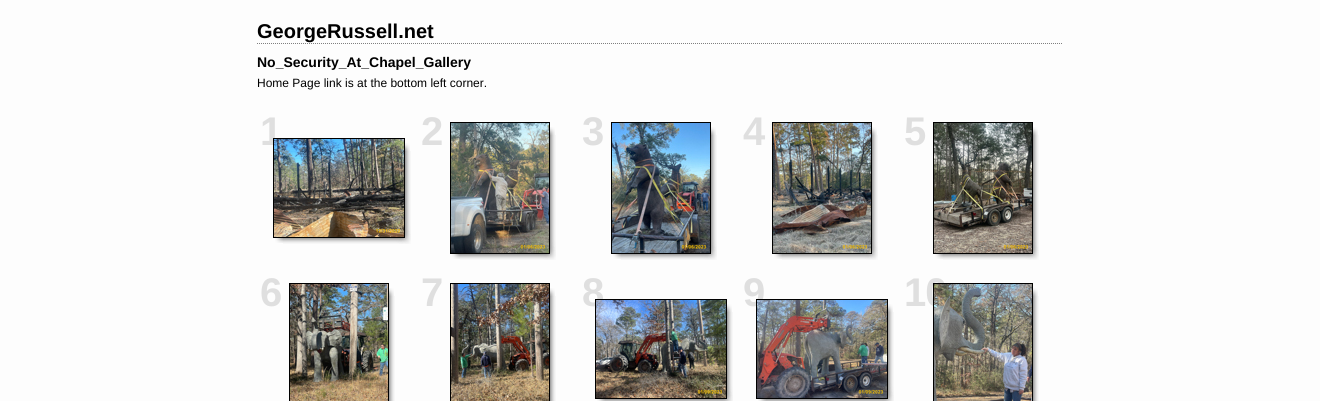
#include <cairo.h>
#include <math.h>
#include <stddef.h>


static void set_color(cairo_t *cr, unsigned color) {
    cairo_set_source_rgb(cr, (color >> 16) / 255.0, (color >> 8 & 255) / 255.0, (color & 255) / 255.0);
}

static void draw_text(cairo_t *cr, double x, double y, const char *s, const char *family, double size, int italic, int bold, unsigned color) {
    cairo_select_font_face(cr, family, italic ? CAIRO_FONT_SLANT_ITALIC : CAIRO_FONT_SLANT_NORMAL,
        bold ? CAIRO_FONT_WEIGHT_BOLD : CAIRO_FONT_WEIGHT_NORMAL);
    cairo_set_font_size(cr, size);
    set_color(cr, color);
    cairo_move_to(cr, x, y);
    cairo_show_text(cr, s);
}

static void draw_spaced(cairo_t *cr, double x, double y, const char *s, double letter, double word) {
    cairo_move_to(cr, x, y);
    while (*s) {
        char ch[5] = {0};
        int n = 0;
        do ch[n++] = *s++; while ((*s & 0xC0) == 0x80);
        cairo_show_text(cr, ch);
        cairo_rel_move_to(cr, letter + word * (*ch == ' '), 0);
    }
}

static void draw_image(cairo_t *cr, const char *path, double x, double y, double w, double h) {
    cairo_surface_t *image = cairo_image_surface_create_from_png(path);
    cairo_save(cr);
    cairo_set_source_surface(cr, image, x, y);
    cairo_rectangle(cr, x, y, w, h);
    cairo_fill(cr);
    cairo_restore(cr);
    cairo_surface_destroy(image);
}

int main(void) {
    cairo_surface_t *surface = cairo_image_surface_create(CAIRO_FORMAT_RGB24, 1320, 401);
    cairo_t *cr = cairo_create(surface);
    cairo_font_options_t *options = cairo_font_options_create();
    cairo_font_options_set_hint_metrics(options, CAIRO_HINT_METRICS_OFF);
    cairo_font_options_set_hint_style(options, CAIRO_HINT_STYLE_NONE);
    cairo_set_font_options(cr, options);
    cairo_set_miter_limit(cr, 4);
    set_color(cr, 0xFDFDFD);
    cairo_paint(cr);
    cairo_new_path(cr);
    cairo_move_to(cr, 257, 43.5);
    cairo_line_to(cr, 1063, 43.5);
    set_color(cr, 0x7F7F7F);
    cairo_set_line_width(cr, 1);
    cairo_set_dash(cr, (double[]){1, 1}, 2, 0);
    cairo_stroke(cr);
    draw_text(cr, 257, 38, "GeorgeRussell.net", "Liberation Sans", 20, 0, 1, 0x000000);
    draw_text(cr, 257, 67, "No_Security_At_Chapel_Gallery", "Liberation Sans", 14, 0, 1, 0x000000);
    draw_text(cr, 257, 87, "Home Page link is at the bottom left corner.", "Liberation Sans", 12, 0, 0, 0x000000);
    cairo_select_font_face(cr, "Liberation Sans", CAIRO_FONT_SLANT_NORMAL, CAIRO_FONT_WEIGHT_BOLD);
    cairo_set_font_size(cr, 40);
    set_color(cr, 0xDFDFDF);
    draw_spaced(cr, 260, 145, "1", -1, 0);
    draw_image(cr, "assets/img1.png", 283, 151, 128, 93);
    cairo_rectangle(cr, 273.5, 138.5, 131, 99);
    set_color(cr, 0x000000);
    cairo_set_dash(cr, NULL, 0, 0);
    cairo_stroke(cr);
    draw_image(cr, "assets/img2.png", 274, 139, 130, 98);
    draw_image(cr, "assets/img3.png", 405, 143, 5, 8);
    draw_image(cr, "assets/img4.png", 275, 238, 8, 5);
    set_color(cr, 0xDFDFDF);
    draw_spaced(cr, 421, 145, "2", -1, 0);
    draw_image(cr, "assets/img5.png", 460, 135, 96, 125);
    cairo_rectangle(cr, 450.5, 122.5, 99, 131);
    set_color(cr, 0x000000);
    cairo_stroke(cr);
    draw_image(cr, "assets/img6.png", 451, 123, 98, 130);
    draw_image(cr, "assets/img3.png", 550, 127, 5, 8);
    draw_image(cr, "assets/img4.png", 452, 254, 8, 5);
    set_color(cr, 0xDFDFDF);
    draw_spaced(cr, 582, 145, "3", -1, 0);
    draw_image(cr, "assets/img5.png", 621, 135, 96, 125);
    cairo_rectangle(cr, 611.5, 122.5, 99, 131);
    set_color(cr, 0x000000);
    cairo_stroke(cr);
    draw_image(cr, "assets/img7.png", 612, 123, 98, 130);
    draw_image(cr, "assets/img3.png", 711, 127, 5, 8);
    draw_image(cr, "assets/img4.png", 613, 254, 8, 5);
    set_color(cr, 0xDFDFDF);
    draw_spaced(cr, 743, 145, "4", -1, 0);
    draw_image(cr, "assets/img5.png", 782, 135, 96, 125);
    cairo_rectangle(cr, 772.5, 122.5, 99, 131);
    set_color(cr, 0x000000);
    cairo_stroke(cr);
    draw_image(cr, "assets/img8.png", 773, 123, 98, 130);
    draw_image(cr, "assets/img3.png", 872, 127, 5, 8);
    draw_image(cr, "assets/img4.png", 774, 254, 8, 5);
    set_color(cr, 0xDFDFDF);
    draw_spaced(cr, 904, 145, "5", -1, 0);
    draw_image(cr, "assets/img5.png", 943, 135, 96, 125);
    cairo_rectangle(cr, 933.5, 122.5, 99, 131);
    set_color(cr, 0x000000);
    cairo_stroke(cr);
    draw_image(cr, "assets/img9.png", 934, 123, 98, 130);
    draw_image(cr, "assets/img3.png", 1033, 127, 5, 8);
    draw_image(cr, "assets/img4.png", 935, 254, 8, 5);
    set_color(cr, 0xDFDFDF);
    draw_spaced(cr, 260, 306, "6", -1, 0);
    draw_image(cr, "assets/img10.png", 389, 296, 6, 105);
    cairo_rectangle(cr, 289.5, 283.5, 99, 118);
    set_color(cr, 0x000000);
    cairo_stroke(cr);
    draw_image(cr, "assets/img11.png", 290, 284, 98, 117);
    draw_image(cr, "assets/img3.png", 389, 288, 5, 8);
    set_color(cr, 0xDFDFDF);
    draw_spaced(cr, 421, 306, "7", -1, 0);
    draw_image(cr, "assets/img10.png", 550, 296, 6, 105);
    cairo_rectangle(cr, 450.5, 283.5, 99, 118);
    set_color(cr, 0x000000);
    cairo_stroke(cr);
    draw_image(cr, "assets/img12.png", 451, 284, 98, 117);
    draw_image(cr, "assets/img3.png", 550, 288, 5, 8);
    set_color(cr, 0xDFDFDF);
    draw_spaced(cr, 582, 306, "8", -1, 0);
    draw_image(cr, "assets/img13.png", 605, 312, 128, 89);
    cairo_rectangle(cr, 595.5, 299.5, 131, 99);
    set_color(cr, 0x000000);
    cairo_stroke(cr);
    draw_image(cr, "assets/img14.png", 596, 300, 130, 98);
    draw_image(cr, "assets/img3.png", 727, 304, 5, 8);
    draw_image(cr, "assets/img15.png", 597, 399, 8, 2);
    set_color(cr, 0xDFDFDF);
    draw_spaced(cr, 743, 306, "9", -1, 0);
    draw_image(cr, "assets/img13.png", 766, 312, 128, 89);
    cairo_rectangle(cr, 756.5, 299.5, 131, 99);
    set_color(cr, 0x000000);
    cairo_stroke(cr);
    draw_image(cr, "assets/img16.png", 757, 300, 130, 98);
    draw_image(cr, "assets/img3.png", 888, 304, 5, 8);
    draw_image(cr, "assets/img15.png", 758, 399, 8, 2);
    set_color(cr, 0xDFDFDF);
    draw_spaced(cr, 904, 306, "10", -1, 0);
    draw_image(cr, "assets/img10.png", 1033, 296, 6, 105);
    cairo_rectangle(cr, 933.5, 283.5, 99, 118);
    set_color(cr, 0x000000);
    cairo_stroke(cr);
    draw_image(cr, "assets/img17.png", 934, 284, 98, 117);
    draw_image(cr, "assets/img3.png", 1033, 288, 5, 8);
    cairo_surface_write_to_png(surface, "output.png");
    cairo_font_options_destroy(options);
    cairo_destroy(cr);
    cairo_surface_destroy(surface);
    return 0;
}
